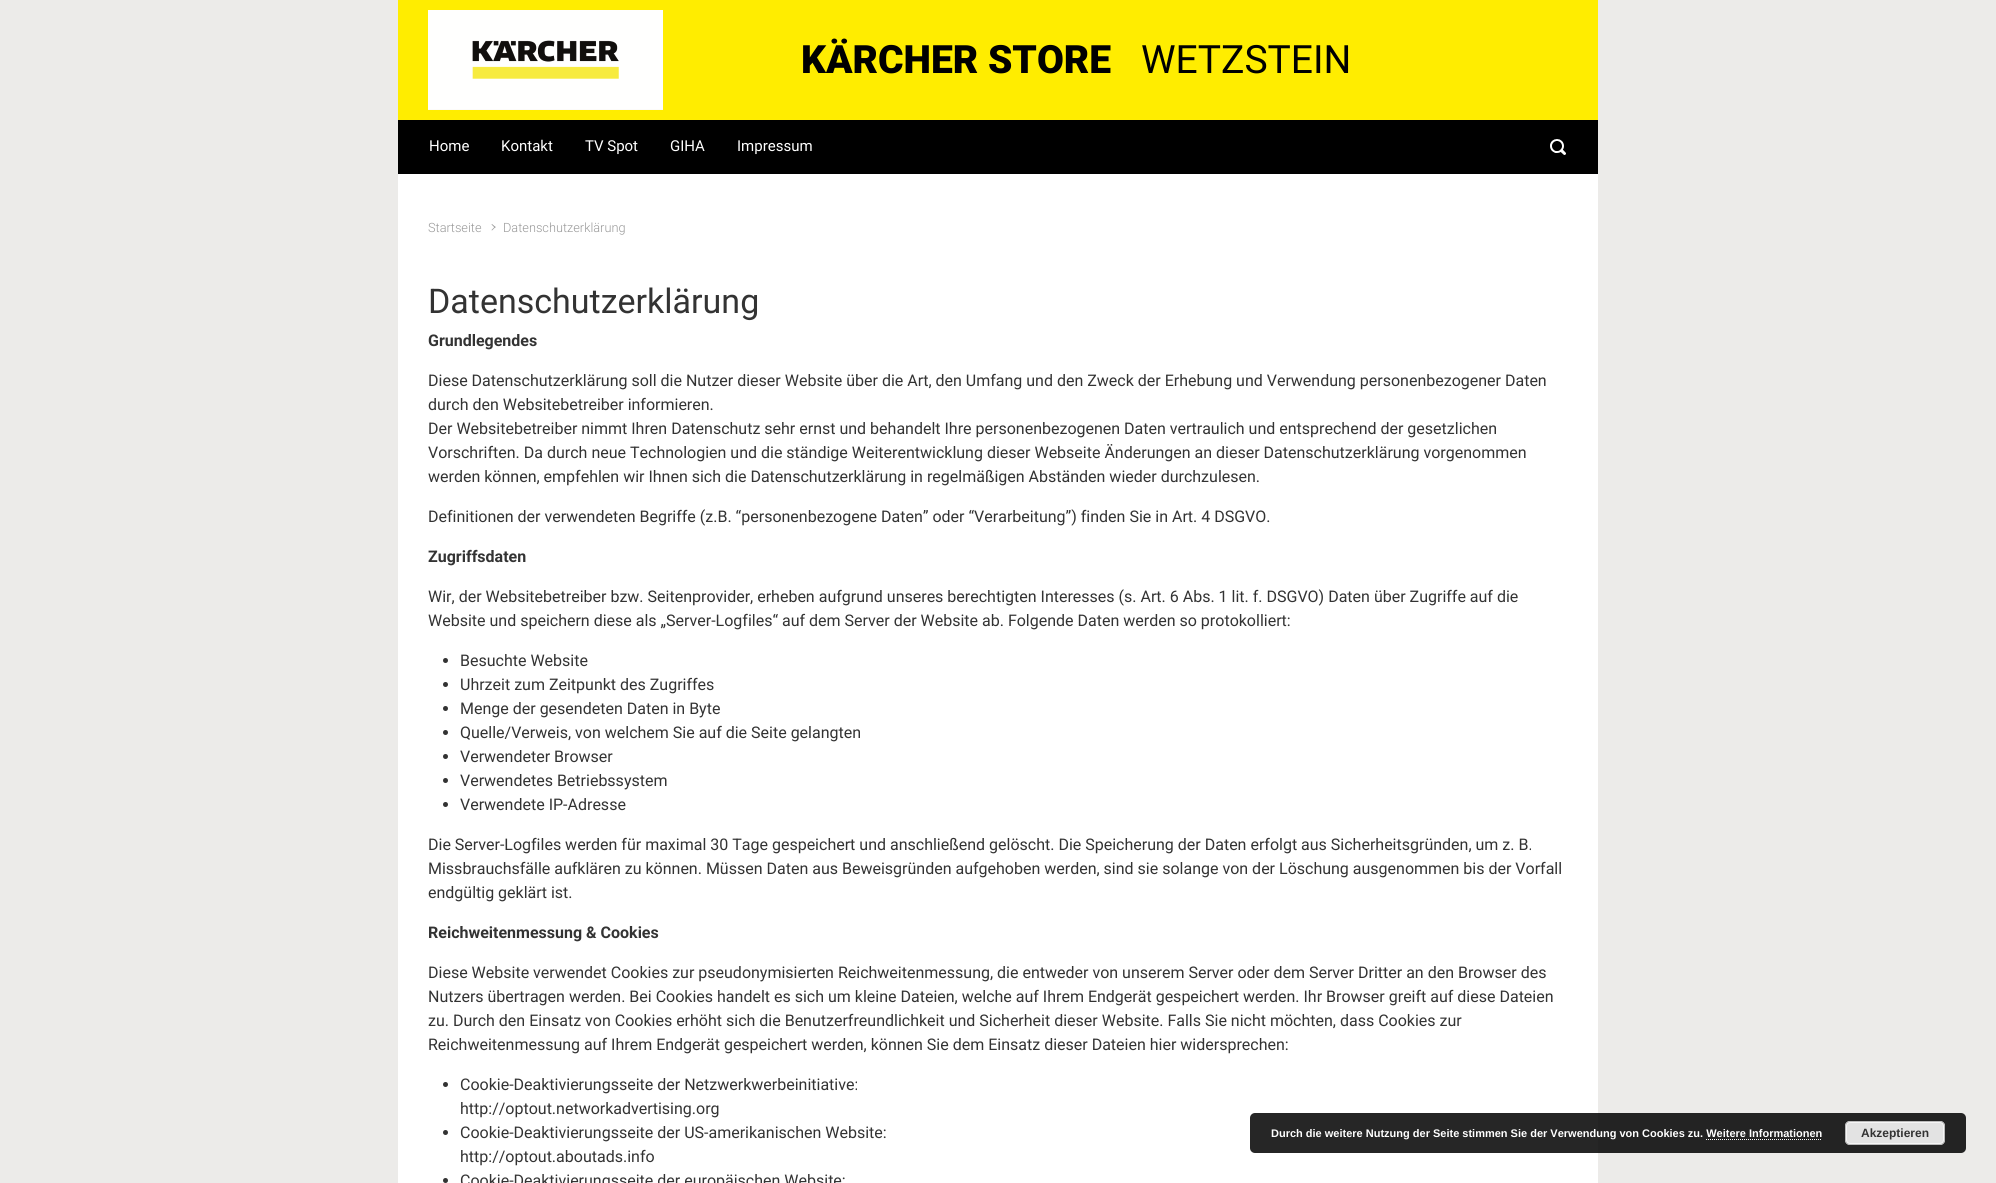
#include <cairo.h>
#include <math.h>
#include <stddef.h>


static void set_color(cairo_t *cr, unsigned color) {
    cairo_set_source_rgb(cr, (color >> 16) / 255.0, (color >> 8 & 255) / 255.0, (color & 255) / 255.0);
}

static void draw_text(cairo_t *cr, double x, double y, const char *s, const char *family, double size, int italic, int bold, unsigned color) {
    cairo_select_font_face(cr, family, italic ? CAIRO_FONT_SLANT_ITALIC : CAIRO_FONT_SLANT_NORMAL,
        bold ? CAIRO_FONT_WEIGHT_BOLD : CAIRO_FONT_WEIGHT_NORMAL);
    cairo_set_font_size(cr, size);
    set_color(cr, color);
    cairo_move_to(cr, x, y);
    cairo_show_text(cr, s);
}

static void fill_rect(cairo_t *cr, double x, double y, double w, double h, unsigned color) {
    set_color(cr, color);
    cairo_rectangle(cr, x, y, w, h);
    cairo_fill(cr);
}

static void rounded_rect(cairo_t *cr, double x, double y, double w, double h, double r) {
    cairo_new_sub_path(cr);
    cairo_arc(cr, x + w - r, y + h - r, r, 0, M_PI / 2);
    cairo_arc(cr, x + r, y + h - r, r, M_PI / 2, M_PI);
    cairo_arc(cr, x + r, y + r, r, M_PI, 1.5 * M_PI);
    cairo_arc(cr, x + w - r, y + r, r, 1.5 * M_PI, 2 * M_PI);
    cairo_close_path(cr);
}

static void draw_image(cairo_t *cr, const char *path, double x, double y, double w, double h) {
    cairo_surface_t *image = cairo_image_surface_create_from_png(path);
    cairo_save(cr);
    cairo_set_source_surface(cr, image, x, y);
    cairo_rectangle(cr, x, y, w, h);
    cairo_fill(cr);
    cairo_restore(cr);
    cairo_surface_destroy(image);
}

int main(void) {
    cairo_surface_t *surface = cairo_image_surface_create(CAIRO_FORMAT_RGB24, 1996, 1183);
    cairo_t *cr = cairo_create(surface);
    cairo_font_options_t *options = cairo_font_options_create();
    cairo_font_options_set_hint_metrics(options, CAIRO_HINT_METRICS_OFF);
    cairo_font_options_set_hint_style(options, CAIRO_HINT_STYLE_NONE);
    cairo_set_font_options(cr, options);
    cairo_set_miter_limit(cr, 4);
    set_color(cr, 0xECEBE9);
    cairo_paint(cr);
    fill_rect(cr, 398, 0, 1200, 120, 0xFFED00);
    draw_image(cr, "assets/img1.png", 428, 10, 235, 100);
    draw_text(cr, 801, 73, "KÄRCHER STORE", "Roboto Black", 39, 0, 0, 0x000000);
    draw_text(cr, 1141, 73, "WETZSTEIN", "Roboto", 39, 0, 0, 0x000000);
    fill_rect(cr, 398, 120, 1200, 54, 0x000000);
    draw_text(cr, 429, 151, "Home", "Roboto", 15, 0, 0, 0xFFFFFF);
    draw_text(cr, 501, 151, "Kontakt", "Roboto", 15, 0, 0, 0xFFFFFF);
    draw_text(cr, 585, 151, "TV Spot", "Roboto", 15, 0, 0, 0xFFFFFF);
    draw_text(cr, 670, 151, "GIHA", "Roboto", 15, 0, 0, 0xFFFFFF);
    draw_text(cr, 737, 151, "Impressum", "Roboto", 15, 0, 0, 0xFFFFFF);
    draw_image(cr, "assets/img2.png", 1550, 139, 16, 16);
    fill_rect(cr, 398, 174, 1200, 1009, 0xFFFFFF);
    draw_text(cr, 428, 232, "Startseite", "Roboto Light", 12.75, 0, 0, 0x999999);
    cairo_new_path(cr);
    cairo_move_to(cr, 491.5, 224.5);
    cairo_line_to(cr, 492, 224);
    cairo_line_to(cr, 495.5, 227);
    cairo_line_to(cr, 495, 228);
    cairo_close_path(cr);
    cairo_fill(cr);
    cairo_new_path(cr);
    cairo_move_to(cr, 491.5, 230);
    cairo_line_to(cr, 495, 226.5);
    cairo_line_to(cr, 495.5, 227);
    cairo_line_to(cr, 492, 230.5);
    cairo_close_path(cr);
    cairo_fill(cr);
    draw_text(cr, 503, 232, "Datenschutzerklärung", "Roboto Light", 12.75, 0, 0, 0x999999);
    draw_text(cr, 428, 313, "Datenschutzerklärung", "Roboto", 34, 0, 0, 0x333333);
    draw_text(cr, 428, 346, "Grundlegendes", "Roboto", 16, 0, 1, 0x333333);
    draw_text(cr, 428, 386, "Diese Datenschutzerklärung soll die Nutzer dieser Website über die Art, den Umfang und den Zweck der Erhebung und Verwendung personenbezogener Daten", "Roboto", 16, 0, 0, 0x333333);
    draw_text(cr, 428, 410, "durch den Websitebetreiber informieren.", "Roboto", 16, 0, 0, 0x333333);
    draw_text(cr, 428, 434, "Der Websitebetreiber nimmt Ihren Datenschutz sehr ernst und behandelt Ihre personenbezogenen Daten vertraulich und entsprechend der gesetzlichen", "Roboto", 16, 0, 0, 0x333333);
    draw_text(cr, 428, 458, "Vorschriften. Da durch neue Technologien und die ständige Weiterentwicklung dieser Webseite Änderungen an dieser Datenschutzerklärung vorgenommen", "Roboto", 16, 0, 0, 0x333333);
    draw_text(cr, 428, 482, "werden können, empfehlen wir Ihnen sich die Datenschutzerklärung in regelmäßigen Abständen wieder durchzulesen.", "Roboto", 16, 0, 0, 0x333333);
    draw_text(cr, 428, 522, "Definitionen der verwendeten Begriffe (z.B. “personenbezogene Daten” oder “Verarbeitung”) finden Sie in Art. 4 DSGVO.", "Roboto", 16, 0, 0, 0x333333);
    draw_text(cr, 428, 562, "Zugriffsdaten", "Roboto", 16, 0, 1, 0x333333);
    draw_text(cr, 428, 602, "Wir, der Websitebetreiber bzw. Seitenprovider, erheben aufgrund unseres berechtigten Interesses (s. Art. 6 Abs. 1 lit. f. DSGVO) Daten über Zugriffe auf die", "Roboto", 16, 0, 0, 0x333333);
    draw_text(cr, 428, 626, "Website und speichern diese als „Server-Logfiles“ auf dem Server der Website ab. Folgende Daten werden so protokolliert:", "Roboto", 16, 0, 0, 0x333333);
    cairo_new_path(cr);
    cairo_arc(cr, 445.5, 660.5, 2.5, 0, 2 * M_PI);
    cairo_fill(cr);
    draw_text(cr, 460, 666, "Besuchte Website", "Roboto", 16, 0, 0, 0x333333);
    cairo_new_path(cr);
    cairo_arc(cr, 445.5, 684.5, 2.5, 0, 2 * M_PI);
    cairo_fill(cr);
    draw_text(cr, 460, 690, "Uhrzeit zum Zeitpunkt des Zugriffes", "Roboto", 16, 0, 0, 0x333333);
    cairo_new_path(cr);
    cairo_arc(cr, 445.5, 708.5, 2.5, 0, 2 * M_PI);
    cairo_fill(cr);
    draw_text(cr, 460, 714, "Menge der gesendeten Daten in Byte", "Roboto", 16, 0, 0, 0x333333);
    cairo_new_path(cr);
    cairo_arc(cr, 445.5, 732.5, 2.5, 0, 2 * M_PI);
    cairo_fill(cr);
    draw_text(cr, 460, 738, "Quelle/Verweis, von welchem Sie auf die Seite gelangten", "Roboto", 16, 0, 0, 0x333333);
    cairo_new_path(cr);
    cairo_arc(cr, 445.5, 756.5, 2.5, 0, 2 * M_PI);
    cairo_fill(cr);
    draw_text(cr, 460, 762, "Verwendeter Browser", "Roboto", 16, 0, 0, 0x333333);
    cairo_new_path(cr);
    cairo_arc(cr, 445.5, 780.5, 2.5, 0, 2 * M_PI);
    cairo_fill(cr);
    draw_text(cr, 460, 786, "Verwendetes Betriebssystem", "Roboto", 16, 0, 0, 0x333333);
    cairo_new_path(cr);
    cairo_arc(cr, 445.5, 804.5, 2.5, 0, 2 * M_PI);
    cairo_fill(cr);
    draw_text(cr, 460, 810, "Verwendete IP-Adresse", "Roboto", 16, 0, 0, 0x333333);
    draw_text(cr, 428, 850, "Die Server-Logfiles werden für maximal 30 Tage gespeichert und anschließend gelöscht. Die Speicherung der Daten erfolgt aus Sicherheitsgründen, um z. B.", "Roboto", 16, 0, 0, 0x333333);
    draw_text(cr, 428, 874, "Missbrauchsfälle aufklären zu können. Müssen Daten aus Beweisgründen aufgehoben werden, sind sie solange von der Löschung ausgenommen bis der Vorfall", "Roboto", 16, 0, 0, 0x333333);
    draw_text(cr, 428, 898, "endgültig geklärt ist.", "Roboto", 16, 0, 0, 0x333333);
    draw_text(cr, 428, 938, "Reichweitenmessung & Cookies", "Roboto", 16, 0, 1, 0x333333);
    draw_text(cr, 428, 978, "Diese Website verwendet Cookies zur pseudonymisierten Reichweitenmessung, die entweder von unserem Server oder dem Server Dritter an den Browser des", "Roboto", 16, 0, 0, 0x333333);
    draw_text(cr, 428, 1002, "Nutzers übertragen werden. Bei Cookies handelt es sich um kleine Dateien, welche auf Ihrem Endgerät gespeichert werden. Ihr Browser greift auf diese Dateien", "Roboto", 16, 0, 0, 0x333333);
    draw_text(cr, 428, 1026, "zu. Durch den Einsatz von Cookies erhöht sich die Benutzerfreundlichkeit und Sicherheit dieser Website. Falls Sie nicht möchten, dass Cookies zur", "Roboto", 16, 0, 0, 0x333333);
    draw_text(cr, 428, 1050, "Reichweitenmessung auf Ihrem Endgerät gespeichert werden, können Sie dem Einsatz dieser Dateien hier widersprechen:", "Roboto", 16, 0, 0, 0x333333);
    cairo_new_path(cr);
    cairo_arc(cr, 445.5, 1084.5, 2.5, 0, 2 * M_PI);
    cairo_fill(cr);
    draw_text(cr, 460, 1090, "Cookie-Deaktivierungsseite der Netzwerkwerbeinitiative:", "Roboto", 16, 0, 0, 0x333333);
    draw_text(cr, 460, 1114, "http://optout.networkadvertising.org", "Roboto", 16, 0, 0, 0x333333);
    cairo_new_path(cr);
    cairo_arc(cr, 445.5, 1132.5, 2.5, 0, 2 * M_PI);
    cairo_fill(cr);
    draw_text(cr, 460, 1138, "Cookie-Deaktivierungsseite der US-amerikanischen Website:", "Roboto", 16, 0, 0, 0x333333);
    draw_text(cr, 460, 1162, "http://optout.aboutads.info", "Roboto", 16, 0, 0, 0x333333);
    cairo_new_path(cr);
    cairo_arc(cr, 445.5, 1180.5, 2.5, 0, 2 * M_PI);
    cairo_fill(cr);
    draw_text(cr, 460, 1186, "Cookie-Deaktivierungsseite der europäischen Website:", "Roboto", 16, 0, 0, 0x333333);
    cairo_set_source_rgba(cr, 0, 0, 0, 0.85);
    rounded_rect(cr, 1250, 1113, 716, 40, 5);
    cairo_fill(cr);
    draw_text(cr, 1271, 1137, "Durch die weitere Nutzung der Seite stimmen Sie der Verwendung von Cookies zu. Weitere Informationen", "Liberation Sans", 11, 0, 1, 0xFFFFFF);
    set_color(cr, 0xE3E3E3);
    rounded_rect(cr, 1845, 1121, 100, 24, 5);
    cairo_fill(cr);
    rounded_rect(cr, 1846.5, 1122.5, 97, 21, 3.5);
    set_color(cr, 0xF6F6F6);
    cairo_set_line_width(cr, 1);
    cairo_stroke(cr);
    rounded_rect(cr, 1845.5, 1121.5, 99, 23, 4.5);
    set_color(cr, 0xBBBBBB);
    cairo_stroke(cr);
    draw_text(cr, 1861, 1137, "Akzeptieren", "Liberation Sans", 12, 0, 1, 0x333333);
    cairo_new_path(cr);
    cairo_move_to(cr, 1706, 1139.5);
    cairo_line_to(cr, 1822, 1139.5);
    set_color(cr, 0xFFFFFF);
    cairo_set_dash(cr, (double[]){1, 1}, 2, 0);
    cairo_stroke(cr);
    cairo_surface_write_to_png(surface, "output.png");
    cairo_font_options_destroy(options);
    cairo_destroy(cr);
    cairo_surface_destroy(surface);
    return 0;
}
